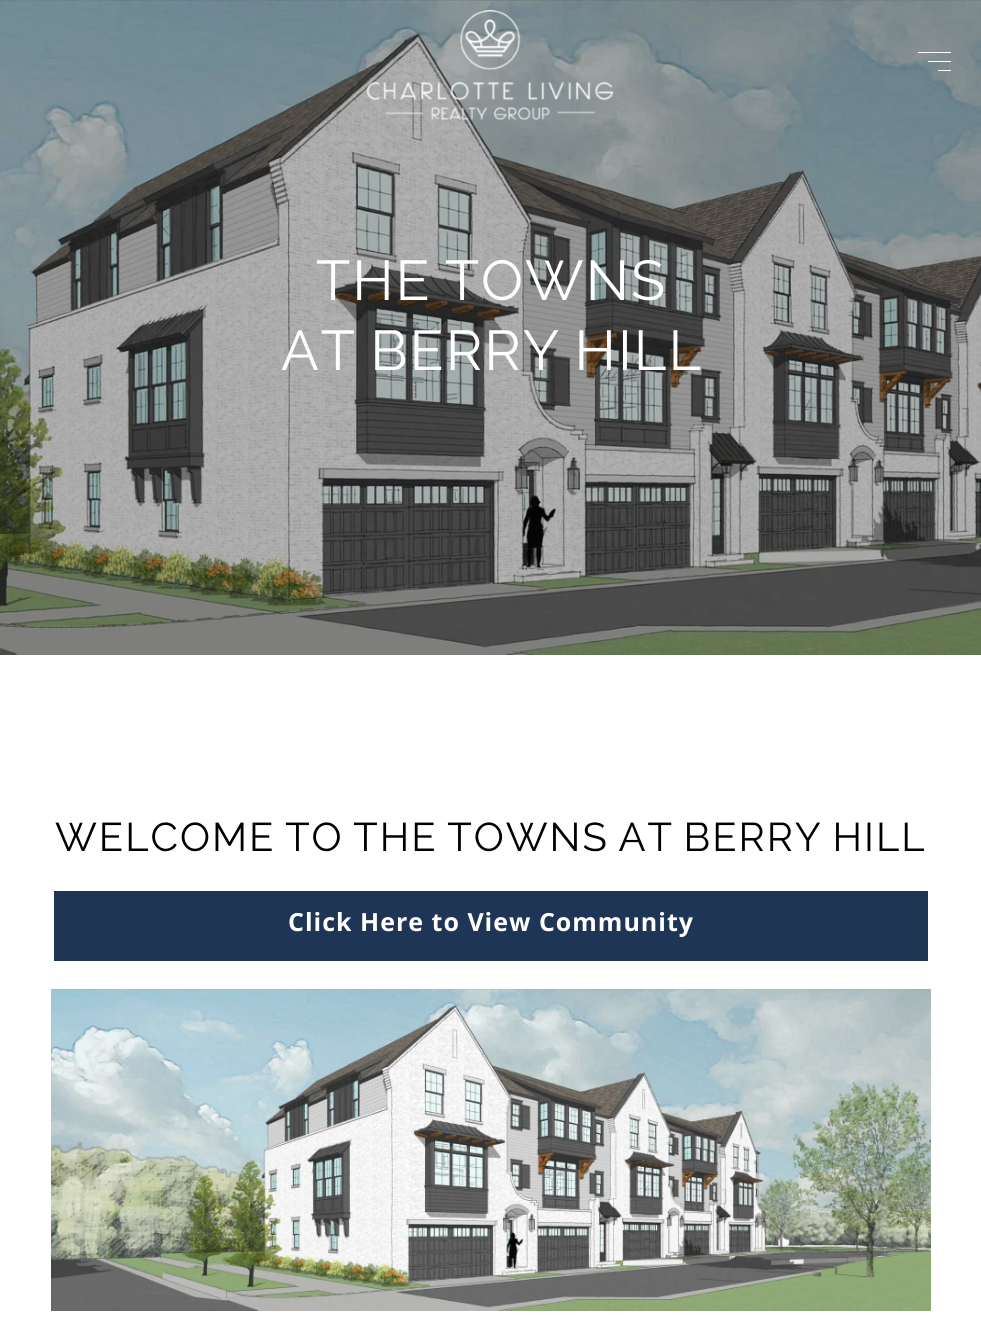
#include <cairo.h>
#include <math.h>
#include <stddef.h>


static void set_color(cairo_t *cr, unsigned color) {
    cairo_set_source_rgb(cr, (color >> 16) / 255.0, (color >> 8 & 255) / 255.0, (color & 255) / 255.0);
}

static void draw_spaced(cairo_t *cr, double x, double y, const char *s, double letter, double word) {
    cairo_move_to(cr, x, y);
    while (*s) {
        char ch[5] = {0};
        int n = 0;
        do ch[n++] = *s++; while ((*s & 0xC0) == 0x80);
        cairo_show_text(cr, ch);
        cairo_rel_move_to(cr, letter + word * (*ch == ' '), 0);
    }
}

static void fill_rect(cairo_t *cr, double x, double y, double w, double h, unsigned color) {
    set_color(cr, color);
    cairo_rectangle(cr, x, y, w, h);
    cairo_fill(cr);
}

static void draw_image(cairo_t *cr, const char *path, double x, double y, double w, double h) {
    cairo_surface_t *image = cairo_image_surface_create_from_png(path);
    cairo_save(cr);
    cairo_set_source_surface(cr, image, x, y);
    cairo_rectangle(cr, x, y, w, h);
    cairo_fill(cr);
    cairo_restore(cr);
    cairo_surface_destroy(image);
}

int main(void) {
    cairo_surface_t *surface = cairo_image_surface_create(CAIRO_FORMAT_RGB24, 981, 1328);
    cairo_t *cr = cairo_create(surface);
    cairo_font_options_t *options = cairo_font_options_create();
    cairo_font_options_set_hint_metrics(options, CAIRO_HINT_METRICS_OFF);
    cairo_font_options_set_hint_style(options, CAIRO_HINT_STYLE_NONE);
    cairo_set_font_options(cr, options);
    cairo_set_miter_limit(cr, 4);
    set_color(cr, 0xFFFFFF);
    cairo_paint(cr);
    draw_image(cr, "assets/img2.png", 0, 0, 981, 655);
    draw_image(cr, "assets/img1.png", 366, 10, 248, 110);
    fill_rect(cr, 918, 52, 33, 1, 0xFFFFFF);
    fill_rect(cr, 928, 61, 23, 1, 0xFFFFFF);
    fill_rect(cr, 938, 70, 13, 1, 0xFFFFFF);
    cairo_select_font_face(cr, "Raleway", CAIRO_FONT_SLANT_NORMAL, CAIRO_FONT_WEIGHT_NORMAL);
    cairo_set_font_size(cr, 56);
    draw_spaced(cr, 316, 300, "THE TOWNS", 2, -3);
    draw_spaced(cr, 281, 370, "AT BERRY HILL", 2, -3);
    cairo_set_font_size(cr, 40);
    set_color(cr, 0x000000);
    draw_spaced(cr, 55, 851, "WELCOME TO THE TOWNS AT BERRY HILL", 2, -2.5);
    fill_rect(cr, 54, 891, 874, 70, 0x1F3555);
    cairo_select_font_face(cr, "Open Sans", CAIRO_FONT_SLANT_NORMAL, CAIRO_FONT_WEIGHT_BOLD);
    cairo_set_font_size(cr, 25);
    set_color(cr, 0xFFFFFF);
    draw_spaced(cr, 288, 931, "Click Here to View Community", 1, 0);
    draw_image(cr, "assets/img3.png", 51, 989, 880, 322);
    cairo_surface_write_to_png(surface, "output.png");
    cairo_font_options_destroy(options);
    cairo_destroy(cr);
    cairo_surface_destroy(surface);
    return 0;
}
